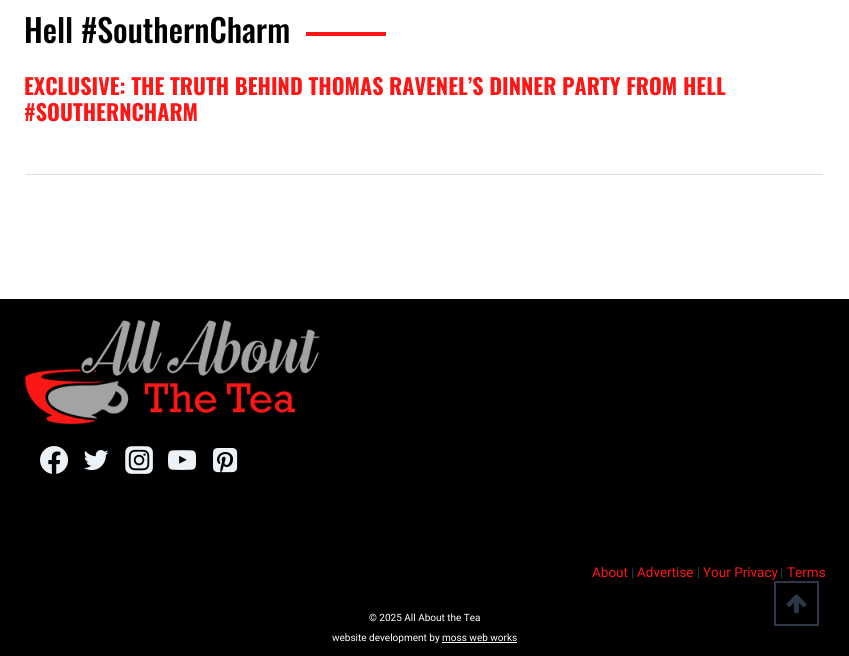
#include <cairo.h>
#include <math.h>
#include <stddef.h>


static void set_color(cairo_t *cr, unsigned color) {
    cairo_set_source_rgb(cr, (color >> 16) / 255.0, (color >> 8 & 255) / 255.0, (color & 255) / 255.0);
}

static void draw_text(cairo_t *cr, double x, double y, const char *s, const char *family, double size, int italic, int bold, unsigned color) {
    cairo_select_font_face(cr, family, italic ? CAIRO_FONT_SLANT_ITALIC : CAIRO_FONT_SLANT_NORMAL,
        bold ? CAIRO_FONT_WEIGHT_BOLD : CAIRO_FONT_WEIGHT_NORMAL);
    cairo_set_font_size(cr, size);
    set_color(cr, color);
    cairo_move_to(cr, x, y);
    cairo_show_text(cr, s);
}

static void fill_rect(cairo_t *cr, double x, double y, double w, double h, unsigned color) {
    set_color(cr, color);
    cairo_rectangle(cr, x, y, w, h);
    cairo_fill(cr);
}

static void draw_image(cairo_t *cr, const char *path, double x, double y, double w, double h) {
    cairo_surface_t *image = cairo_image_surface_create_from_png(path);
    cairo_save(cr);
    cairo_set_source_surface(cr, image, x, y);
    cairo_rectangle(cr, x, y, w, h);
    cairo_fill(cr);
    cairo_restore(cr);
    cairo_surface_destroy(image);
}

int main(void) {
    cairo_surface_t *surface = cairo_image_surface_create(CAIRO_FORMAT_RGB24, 849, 656);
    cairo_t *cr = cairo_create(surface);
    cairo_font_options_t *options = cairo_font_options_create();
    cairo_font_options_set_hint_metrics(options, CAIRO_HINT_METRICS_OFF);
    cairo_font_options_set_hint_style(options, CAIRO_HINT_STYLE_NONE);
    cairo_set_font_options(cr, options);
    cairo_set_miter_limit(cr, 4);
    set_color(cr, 0xFFFFFF);
    cairo_paint(cr);
    draw_text(cr, 24, 43, "Hell #SouthernCharm", "Oswald Medium", 32, 0, 0, 0x000000);
    fill_rect(cr, 306, 32, 80, 4, 0xFC1717);
    fill_rect(cr, 26, 174, 797, 1, 0xDDDDDD);
    draw_text(cr, 24, 95, "EXCLUSIVE: THE TRUTH BEHIND THOMAS RAVENEL’S DINNER PARTY FROM HELL", "Oswald", 22, 0, 1, 0xFC1717);
    draw_text(cr, 24, 121, "#SOUTHERNCHARM", "Oswald", 22, 0, 1, 0xFC1717);
    fill_rect(cr, 0, 299, 849, 357, 0x000000);
    draw_image(cr, "assets/img1.png", 24, 320, 296, 104);
    draw_image(cr, "assets/img2.png", 40, 446, 28, 28);
    draw_image(cr, "assets/img3.png", 83, 450, 26, 21);
    draw_image(cr, "assets/img4.png", 125, 446, 28, 28);
    draw_image(cr, "assets/img5.png", 168, 450, 28, 20);
    draw_image(cr, "assets/img6.png", 213, 448, 25, 25);
    draw_text(cr, 592, 577, "About", "Roboto", 13.5, 0, 0, 0xFC1717);
    draw_text(cr, 631, 577, "|", "Roboto", 13.5, 0, 0, 0x2D3748);
    draw_text(cr, 637, 577, "Advertise", "Roboto", 13.5, 0, 0, 0xFC1717);
    draw_text(cr, 697, 577, "|", "Roboto", 13.5, 0, 0, 0x2D3748);
    draw_text(cr, 703, 577, "Your Privacy", "Roboto", 13.5, 0, 0, 0xFC1717);
    draw_text(cr, 780, 577, "|", "Roboto", 13.5, 0, 0, 0x2D3748);
    draw_text(cr, 787, 577, "Terms", "Roboto", 13.5, 0, 0, 0xFC1717);
    draw_text(cr, 369, 621, "© 2025 All About the Tea", "Roboto", 10, 0, 0, 0xFFFFFF);
    draw_text(cr, 332, 641, "website development by moss web works", "Roboto", 10, 0, 0, 0xFFFFFF);
    fill_rect(cr, 442, 642, 75, 1, 0xFFFFFF);
    cairo_rectangle(cr, 775, 582, 43, 43);
    set_color(cr, 0x2D3748);
    cairo_stroke(cr);
    draw_image(cr, "assets/img7.png", 786, 594, 21, 20);
    cairo_surface_write_to_png(surface, "output.png");
    cairo_font_options_destroy(options);
    cairo_destroy(cr);
    cairo_surface_destroy(surface);
    return 0;
}
